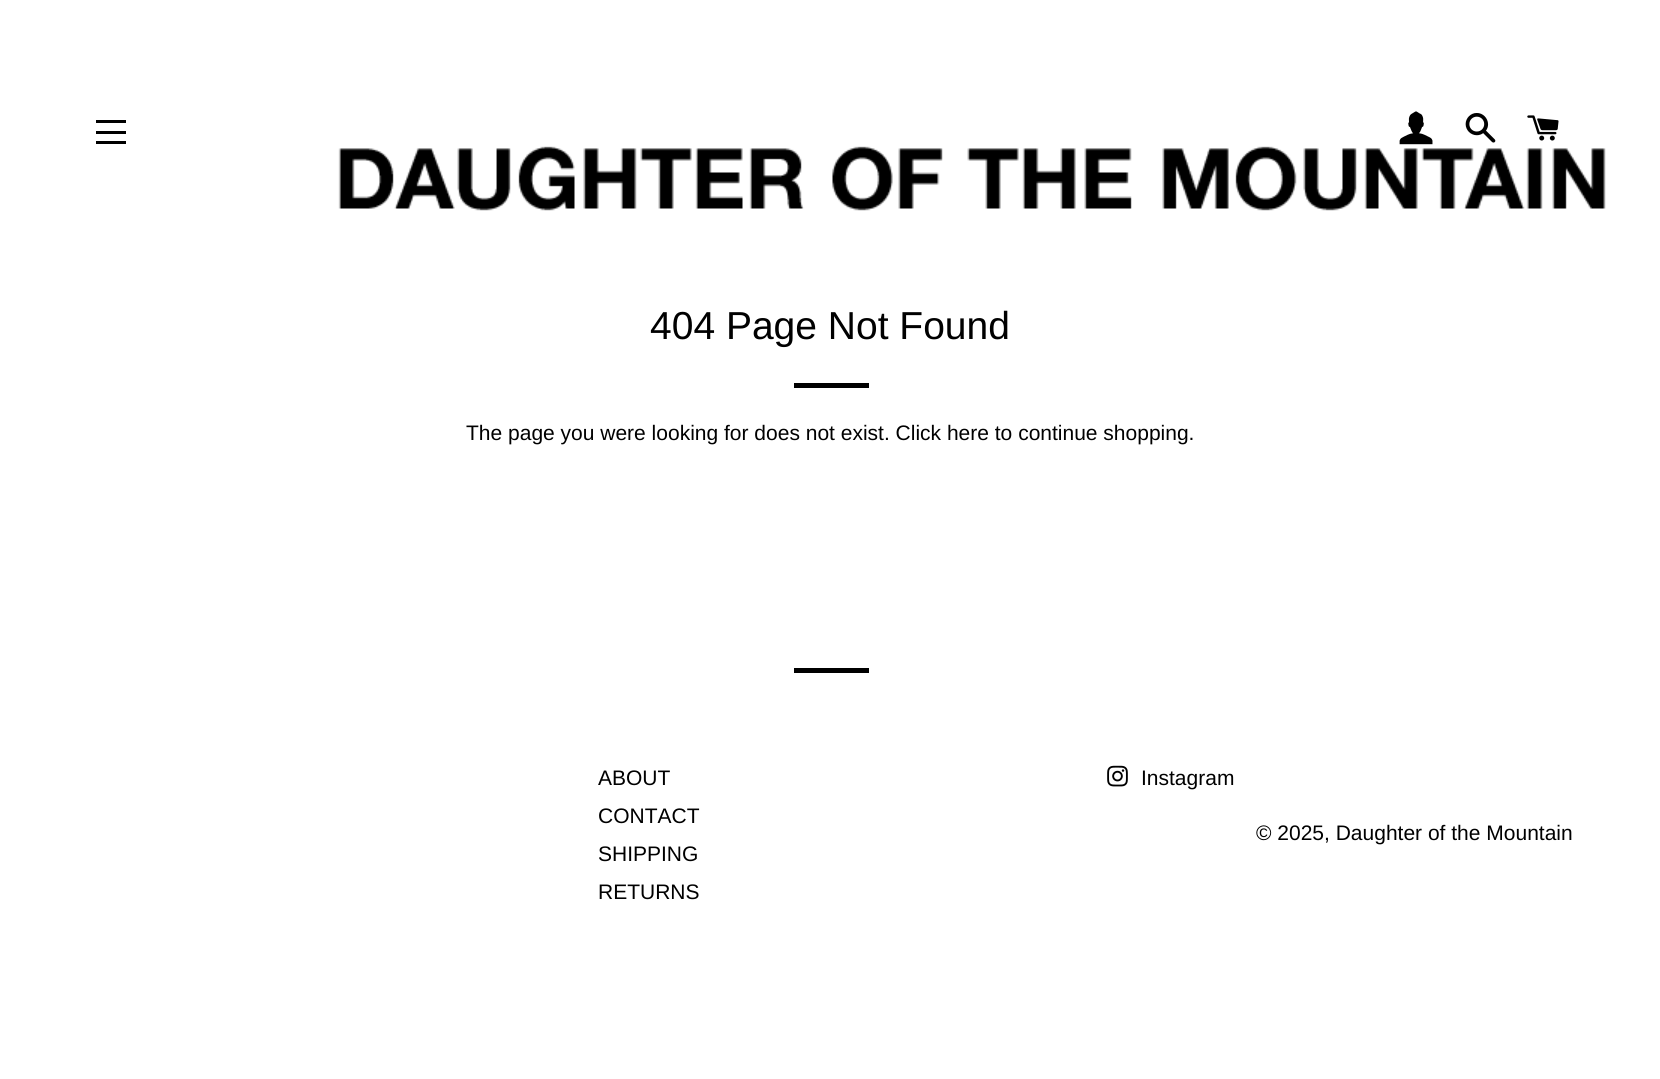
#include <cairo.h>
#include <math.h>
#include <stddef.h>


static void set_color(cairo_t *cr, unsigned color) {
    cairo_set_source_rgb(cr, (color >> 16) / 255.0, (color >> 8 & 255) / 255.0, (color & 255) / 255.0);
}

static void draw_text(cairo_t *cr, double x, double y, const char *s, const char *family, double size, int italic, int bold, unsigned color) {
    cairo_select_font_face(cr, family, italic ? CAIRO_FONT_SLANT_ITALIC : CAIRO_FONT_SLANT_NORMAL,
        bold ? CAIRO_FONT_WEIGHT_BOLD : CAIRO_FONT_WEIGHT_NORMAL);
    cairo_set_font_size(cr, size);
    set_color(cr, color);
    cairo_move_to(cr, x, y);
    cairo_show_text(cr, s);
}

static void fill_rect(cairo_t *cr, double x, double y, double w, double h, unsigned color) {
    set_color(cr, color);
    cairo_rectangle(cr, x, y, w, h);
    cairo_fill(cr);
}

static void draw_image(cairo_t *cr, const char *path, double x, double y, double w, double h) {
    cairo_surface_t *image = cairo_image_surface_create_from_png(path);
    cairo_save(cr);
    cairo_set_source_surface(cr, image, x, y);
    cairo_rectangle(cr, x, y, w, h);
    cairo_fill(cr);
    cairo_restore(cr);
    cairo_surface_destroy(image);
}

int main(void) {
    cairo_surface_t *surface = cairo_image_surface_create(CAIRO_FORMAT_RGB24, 1660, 1079);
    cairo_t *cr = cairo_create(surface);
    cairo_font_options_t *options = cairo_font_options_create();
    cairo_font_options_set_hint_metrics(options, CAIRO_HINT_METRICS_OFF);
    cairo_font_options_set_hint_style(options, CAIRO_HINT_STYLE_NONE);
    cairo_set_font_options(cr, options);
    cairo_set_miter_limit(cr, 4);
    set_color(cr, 0xFFFFFF);
    cairo_paint(cr);
    fill_rect(cr, 96, 120, 30, 3, 0x000000);
    fill_rect(cr, 96, 131, 30, 3, 0x000000);
    fill_rect(cr, 96, 141, 30, 3, 0x000000);
    draw_image(cr, "assets/img1.png", 1399, 111, 34, 34);
    draw_image(cr, "assets/img2.png", 1465, 113, 31, 30);
    draw_image(cr, "assets/img3.png", 1527, 115, 32, 26);
    draw_image(cr, "assets/img4.png", 338, 146, 1268, 65);
    draw_text(cr, 650, 339, "404 Page Not Found", "Liberation Sans", 39, 0, 0, 0x000000);
    fill_rect(cr, 794, 383, 75, 5, 0x000000);
    draw_text(cr, 466, 440, "The page you were looking for does not exist. Click here to continue shopping.", "Liberation Sans", 21, 0, 0, 0x000000);
    fill_rect(cr, 794, 668, 75, 5, 0x000000);
    draw_text(cr, 598, 785, "ABOUT", "Liberation Sans", 21, 0, 0, 0x000000);
    draw_text(cr, 598, 823, "CONTACT", "Liberation Sans", 21, 0, 0, 0x000000);
    draw_text(cr, 598, 861, "SHIPPING", "Liberation Sans", 21, 0, 0, 0x000000);
    draw_text(cr, 598, 899, "RETURNS", "Liberation Sans", 21, 0, 0, 0x000000);
    draw_image(cr, "assets/img5.png", 1107, 765, 21, 22);
    draw_text(cr, 1141, 785, "Instagram", "Liberation Sans", 21, 0, 0, 0x000000);
    draw_text(cr, 1256, 840, "© 2025, Daughter of the Mountain", "Liberation Sans", 21, 0, 0, 0x000000);
    cairo_surface_write_to_png(surface, "output.png");
    cairo_font_options_destroy(options);
    cairo_destroy(cr);
    cairo_surface_destroy(surface);
    return 0;
}
